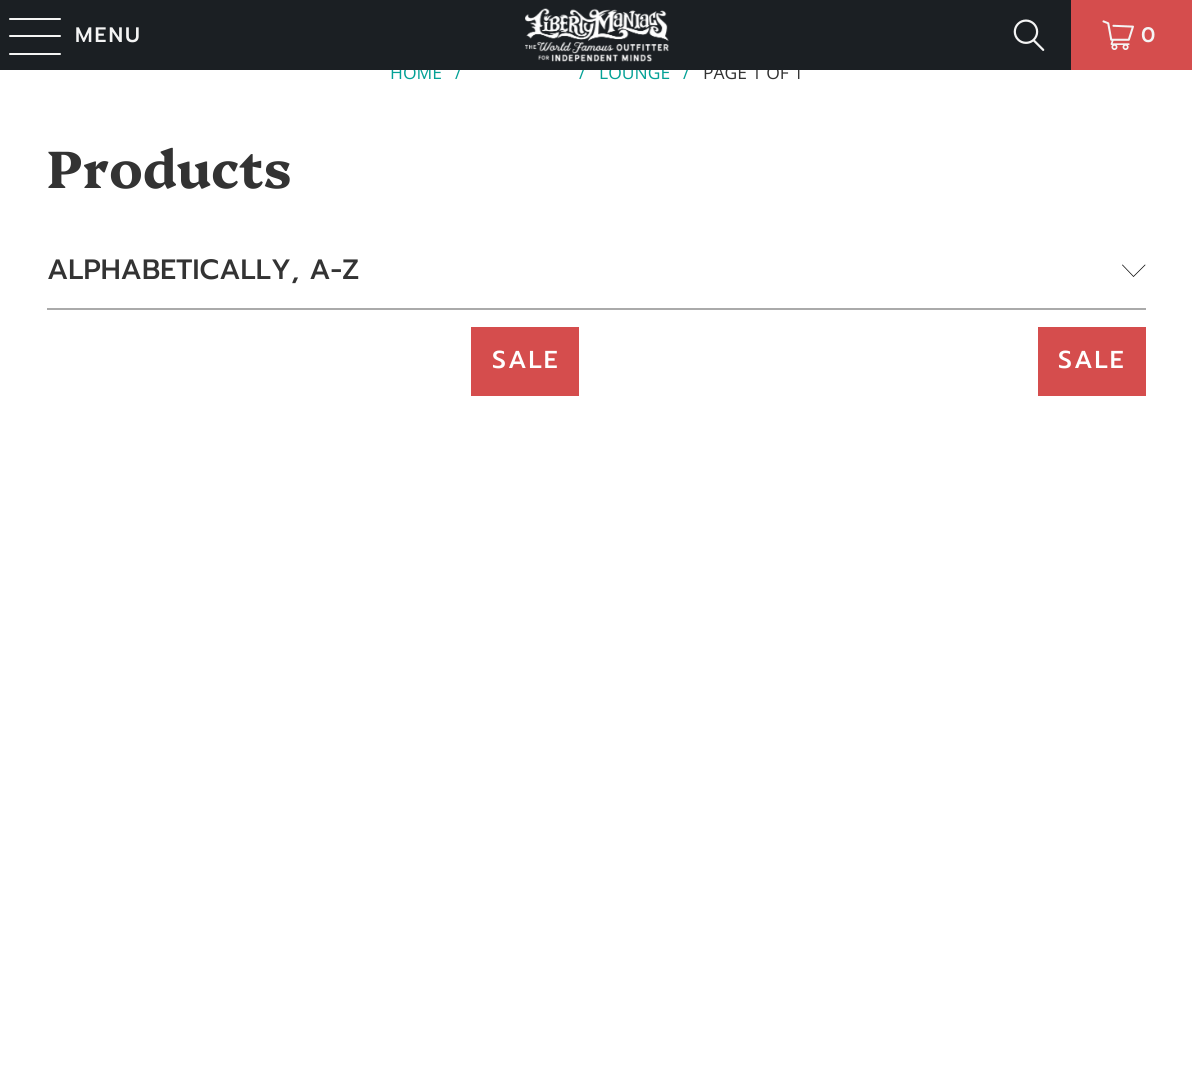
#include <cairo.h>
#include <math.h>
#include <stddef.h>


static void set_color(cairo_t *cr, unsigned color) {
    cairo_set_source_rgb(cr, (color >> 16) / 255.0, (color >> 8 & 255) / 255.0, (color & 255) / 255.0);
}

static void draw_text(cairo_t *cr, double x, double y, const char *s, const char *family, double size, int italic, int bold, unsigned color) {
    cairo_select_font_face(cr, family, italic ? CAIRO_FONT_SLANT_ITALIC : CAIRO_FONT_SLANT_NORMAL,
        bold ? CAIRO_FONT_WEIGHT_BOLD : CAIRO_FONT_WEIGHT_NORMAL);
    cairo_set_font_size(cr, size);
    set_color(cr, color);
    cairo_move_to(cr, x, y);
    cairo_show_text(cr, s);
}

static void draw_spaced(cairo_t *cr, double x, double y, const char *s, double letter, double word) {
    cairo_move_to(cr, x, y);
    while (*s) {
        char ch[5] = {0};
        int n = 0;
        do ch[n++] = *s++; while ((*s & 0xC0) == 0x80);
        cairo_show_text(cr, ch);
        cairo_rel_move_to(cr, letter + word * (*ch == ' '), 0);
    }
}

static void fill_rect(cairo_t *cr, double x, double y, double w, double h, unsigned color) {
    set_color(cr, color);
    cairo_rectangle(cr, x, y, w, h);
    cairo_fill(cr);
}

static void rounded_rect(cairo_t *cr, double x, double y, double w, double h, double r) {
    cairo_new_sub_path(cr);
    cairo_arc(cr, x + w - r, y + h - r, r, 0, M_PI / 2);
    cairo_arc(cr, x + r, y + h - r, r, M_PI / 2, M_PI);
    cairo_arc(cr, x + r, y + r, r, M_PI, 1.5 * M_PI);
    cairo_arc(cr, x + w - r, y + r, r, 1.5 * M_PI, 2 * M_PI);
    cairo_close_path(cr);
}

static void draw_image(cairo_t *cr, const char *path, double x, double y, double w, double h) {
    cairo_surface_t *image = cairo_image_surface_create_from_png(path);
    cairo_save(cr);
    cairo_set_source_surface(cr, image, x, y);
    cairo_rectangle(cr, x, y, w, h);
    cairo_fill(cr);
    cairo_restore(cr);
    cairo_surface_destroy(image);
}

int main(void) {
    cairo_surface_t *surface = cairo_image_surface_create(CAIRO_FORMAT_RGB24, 1192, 1075);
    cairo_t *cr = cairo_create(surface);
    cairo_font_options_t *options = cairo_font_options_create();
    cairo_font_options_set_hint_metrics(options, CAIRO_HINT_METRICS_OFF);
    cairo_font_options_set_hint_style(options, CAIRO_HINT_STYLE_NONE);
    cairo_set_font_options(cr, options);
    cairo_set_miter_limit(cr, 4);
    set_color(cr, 0xFFFFFF);
    cairo_paint(cr);
    draw_text(cr, 390, 79, "HOME", "Open Sans", 17.5, 0, 0, 0x03A196);
    draw_text(cr, 455, 79, "/", "Open Sans", 17.5, 0, 0, 0x03A196);
    draw_text(cr, 579, 79, "/", "Open Sans", 17.5, 0, 0, 0x03A196);
    draw_text(cr, 599, 79, "LOUNGE", "Open Sans", 17.5, 0, 0, 0x03A196);
    draw_text(cr, 683, 79, "/", "Open Sans", 17.5, 0, 0, 0x03A196);
    draw_text(cr, 703, 79, "PAGE 1 OF 1", "Open Sans", 17.5, 0, 0, 0x333333);
    fill_rect(cr, 0, 0, 1071, 70, 0x1B1F23);
    set_color(cr, 0xF4F4F4);
    rounded_rect(cr, 9, 18, 52, 2, 1);
    cairo_fill(cr);
    rounded_rect(cr, 9, 35, 52, 2, 1);
    cairo_fill(cr);
    rounded_rect(cr, 9, 53, 52, 2, 1);
    cairo_fill(cr);
    cairo_select_font_face(cr, "Prompt Medium", CAIRO_FONT_SLANT_NORMAL, CAIRO_FONT_WEIGHT_NORMAL);
    cairo_set_font_size(cr, 21);
    draw_spaced(cr, 75, 42, "MENU", 2, 0);
    draw_image(cr, "assets/img1.png", 525, 8, 144, 54);
    draw_image(cr, "assets/img2.png", 1013, 19, 32, 32);
    fill_rect(cr, 1071, 0, 121, 70, 0xD54D4D);
    draw_image(cr, "assets/img3.png", 1102, 20, 32, 30);
    set_color(cr, 0xF4F4F4);
    draw_spaced(cr, 1141, 42, "0", 2, 0);
    draw_text(cr, 47, 188, "Products", "Platypi", 52.5, 0, 1, 0x333333);
    set_color(cr, 0x000000);
    cairo_new_path(cr);
    cairo_move_to(cr, 1133.5, 277);
    cairo_line_to(cr, 1122, 265);
    cairo_line_to(cr, 1122.5, 264.5);
    cairo_line_to(cr, 1133.5, 276);
    cairo_line_to(cr, 1145, 264.5);
    cairo_line_to(cr, 1145.5, 265);
    cairo_close_path(cr);
    cairo_fill(cr);
    draw_text(cr, 47, 279, "ALPHABETICALLY, A-Z", "Prompt Medium", 28, 0, 0, 0x333333);
    fill_rect(cr, 47, 308, 1099, 2, 0xAAAAAA);
    fill_rect(cr, 471, 327, 108, 69, 0xD54D4D);
    cairo_set_font_size(cr, 24.5);
    set_color(cr, 0xFFFFFF);
    draw_spaced(cr, 492, 368, "SALE", 2, 0);
    fill_rect(cr, 1038, 327, 108, 69, 0xD54D4D);
    set_color(cr, 0xFFFFFF);
    draw_spaced(cr, 1058, 368, "SALE", 2, 0);
    cairo_surface_write_to_png(surface, "output.png");
    cairo_font_options_destroy(options);
    cairo_destroy(cr);
    cairo_surface_destroy(surface);
    return 0;
}
